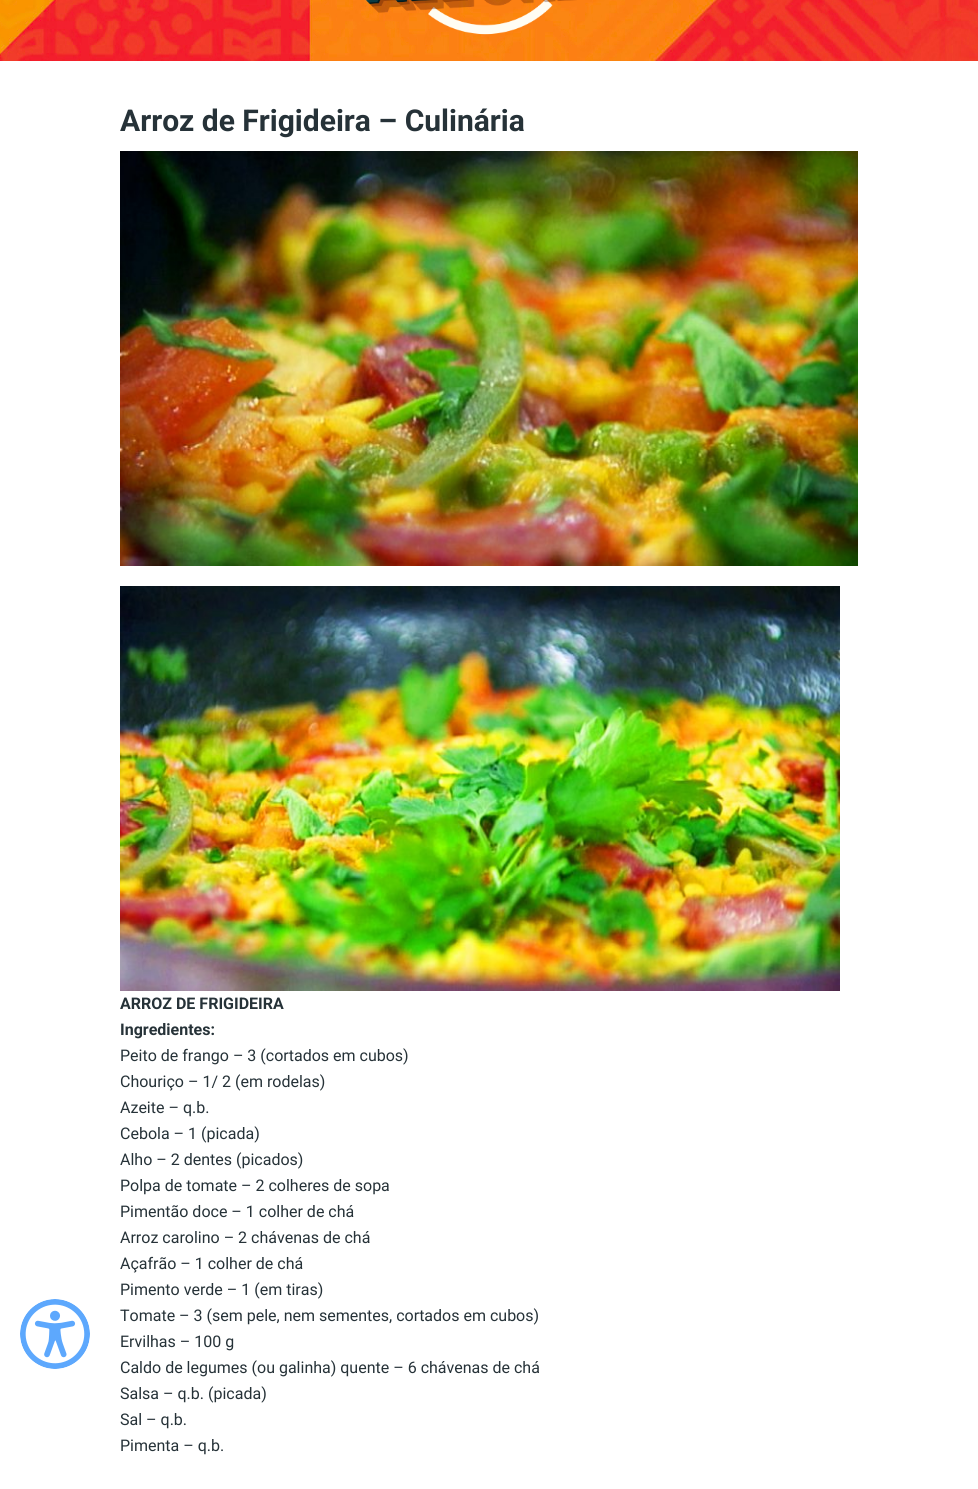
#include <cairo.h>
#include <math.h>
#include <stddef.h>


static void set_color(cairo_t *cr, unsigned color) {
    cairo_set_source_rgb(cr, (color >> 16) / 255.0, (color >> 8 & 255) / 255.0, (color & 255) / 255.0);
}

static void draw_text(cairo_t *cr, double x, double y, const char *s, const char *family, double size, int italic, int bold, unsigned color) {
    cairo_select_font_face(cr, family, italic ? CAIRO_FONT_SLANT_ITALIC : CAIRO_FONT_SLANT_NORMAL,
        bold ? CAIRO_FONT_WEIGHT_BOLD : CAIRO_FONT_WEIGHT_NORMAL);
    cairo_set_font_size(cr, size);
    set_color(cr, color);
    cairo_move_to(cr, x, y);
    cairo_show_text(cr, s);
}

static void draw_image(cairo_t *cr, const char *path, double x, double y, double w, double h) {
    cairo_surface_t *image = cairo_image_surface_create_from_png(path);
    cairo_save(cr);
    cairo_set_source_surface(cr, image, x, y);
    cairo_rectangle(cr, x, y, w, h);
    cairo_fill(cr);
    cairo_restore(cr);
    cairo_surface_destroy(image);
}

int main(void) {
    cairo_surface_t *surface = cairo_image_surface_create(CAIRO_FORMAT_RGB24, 978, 1489);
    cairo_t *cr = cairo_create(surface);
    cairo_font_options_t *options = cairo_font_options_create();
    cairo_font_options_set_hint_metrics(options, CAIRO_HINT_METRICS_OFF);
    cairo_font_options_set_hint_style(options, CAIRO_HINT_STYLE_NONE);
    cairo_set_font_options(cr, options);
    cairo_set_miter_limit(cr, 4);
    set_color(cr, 0xFFFFFF);
    cairo_paint(cr);
    draw_image(cr, "assets/img1.png", 20, 1299, 70, 70);
    draw_image(cr, "assets/img2.png", 0, 0, 978, 61);
    draw_image(cr, "assets/img3.png", 365, 0, 212, 35);
    draw_text(cr, 120, 131, "Arroz de Frigideira – Culinária", "Roboto", 30, 0, 1, 0x263238);
    draw_image(cr, "assets/img4.png", 120, 151, 738, 415);
    draw_image(cr, "assets/img5.png", 120, 586, 720, 405);
    draw_text(cr, 120, 1009, "ARROZ DE FRIGIDEIRA", "Roboto", 16, 0, 1, 0x263238);
    draw_text(cr, 120, 1035, "Ingredientes:", "Roboto", 16, 0, 1, 0x263238);
    draw_text(cr, 120, 1061, "Peito de frango – 3 (cortados em cubos)", "Roboto", 16, 0, 0, 0x263238);
    draw_text(cr, 120, 1087, "Chouriço – 1/ 2 (em rodelas)", "Roboto", 16, 0, 0, 0x263238);
    draw_text(cr, 120, 1113, "Azeite – q.b.", "Roboto", 16, 0, 0, 0x263238);
    draw_text(cr, 120, 1139, "Cebola – 1 (picada)", "Roboto", 16, 0, 0, 0x263238);
    draw_text(cr, 120, 1165, "Alho – 2 dentes (picados)", "Roboto", 16, 0, 0, 0x263238);
    draw_text(cr, 120, 1191, "Polpa de tomate – 2 colheres de sopa", "Roboto", 16, 0, 0, 0x263238);
    draw_text(cr, 120, 1217, "Pimentão doce – 1 colher de chá", "Roboto", 16, 0, 0, 0x263238);
    draw_text(cr, 120, 1243, "Arroz carolino – 2 chávenas de chá", "Roboto", 16, 0, 0, 0x263238);
    draw_text(cr, 120, 1269, "Açafrão – 1 colher de chá", "Roboto", 16, 0, 0, 0x263238);
    draw_text(cr, 120, 1295, "Pimento verde – 1 (em tiras)", "Roboto", 16, 0, 0, 0x263238);
    draw_text(cr, 120, 1321, "Tomate – 3 (sem pele, nem sementes, cortados em cubos)", "Roboto", 16, 0, 0, 0x263238);
    draw_text(cr, 120, 1347, "Ervilhas – 100 g", "Roboto", 16, 0, 0, 0x263238);
    draw_text(cr, 120, 1373, "Caldo de legumes (ou galinha) quente – 6 chávenas de chá", "Roboto", 16, 0, 0, 0x263238);
    draw_text(cr, 120, 1399, "Salsa – q.b. (picada)", "Roboto", 16, 0, 0, 0x263238);
    draw_text(cr, 120, 1425, "Sal – q.b.", "Roboto", 16, 0, 0, 0x263238);
    draw_text(cr, 120, 1451, "Pimenta – q.b.", "Roboto", 16, 0, 0, 0x263238);
    cairo_surface_write_to_png(surface, "output.png");
    cairo_font_options_destroy(options);
    cairo_destroy(cr);
    cairo_surface_destroy(surface);
    return 0;
}
